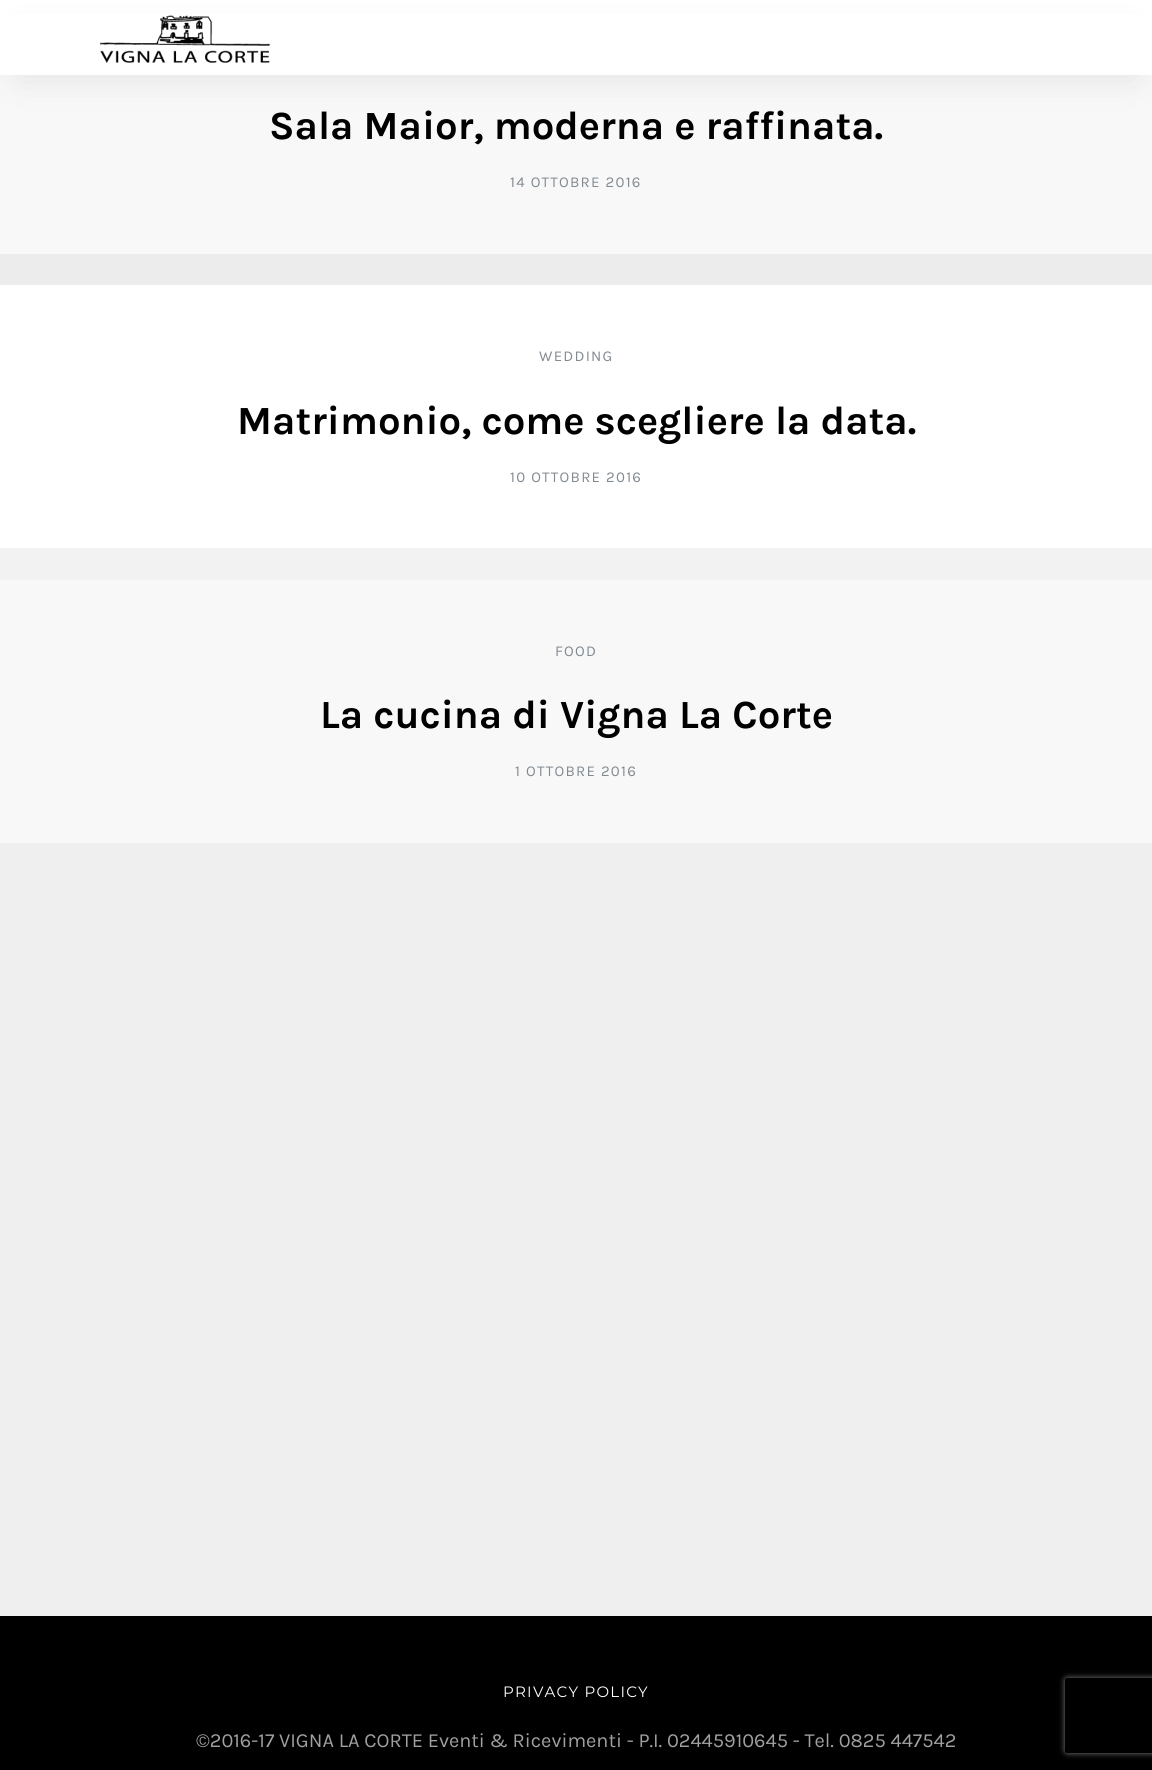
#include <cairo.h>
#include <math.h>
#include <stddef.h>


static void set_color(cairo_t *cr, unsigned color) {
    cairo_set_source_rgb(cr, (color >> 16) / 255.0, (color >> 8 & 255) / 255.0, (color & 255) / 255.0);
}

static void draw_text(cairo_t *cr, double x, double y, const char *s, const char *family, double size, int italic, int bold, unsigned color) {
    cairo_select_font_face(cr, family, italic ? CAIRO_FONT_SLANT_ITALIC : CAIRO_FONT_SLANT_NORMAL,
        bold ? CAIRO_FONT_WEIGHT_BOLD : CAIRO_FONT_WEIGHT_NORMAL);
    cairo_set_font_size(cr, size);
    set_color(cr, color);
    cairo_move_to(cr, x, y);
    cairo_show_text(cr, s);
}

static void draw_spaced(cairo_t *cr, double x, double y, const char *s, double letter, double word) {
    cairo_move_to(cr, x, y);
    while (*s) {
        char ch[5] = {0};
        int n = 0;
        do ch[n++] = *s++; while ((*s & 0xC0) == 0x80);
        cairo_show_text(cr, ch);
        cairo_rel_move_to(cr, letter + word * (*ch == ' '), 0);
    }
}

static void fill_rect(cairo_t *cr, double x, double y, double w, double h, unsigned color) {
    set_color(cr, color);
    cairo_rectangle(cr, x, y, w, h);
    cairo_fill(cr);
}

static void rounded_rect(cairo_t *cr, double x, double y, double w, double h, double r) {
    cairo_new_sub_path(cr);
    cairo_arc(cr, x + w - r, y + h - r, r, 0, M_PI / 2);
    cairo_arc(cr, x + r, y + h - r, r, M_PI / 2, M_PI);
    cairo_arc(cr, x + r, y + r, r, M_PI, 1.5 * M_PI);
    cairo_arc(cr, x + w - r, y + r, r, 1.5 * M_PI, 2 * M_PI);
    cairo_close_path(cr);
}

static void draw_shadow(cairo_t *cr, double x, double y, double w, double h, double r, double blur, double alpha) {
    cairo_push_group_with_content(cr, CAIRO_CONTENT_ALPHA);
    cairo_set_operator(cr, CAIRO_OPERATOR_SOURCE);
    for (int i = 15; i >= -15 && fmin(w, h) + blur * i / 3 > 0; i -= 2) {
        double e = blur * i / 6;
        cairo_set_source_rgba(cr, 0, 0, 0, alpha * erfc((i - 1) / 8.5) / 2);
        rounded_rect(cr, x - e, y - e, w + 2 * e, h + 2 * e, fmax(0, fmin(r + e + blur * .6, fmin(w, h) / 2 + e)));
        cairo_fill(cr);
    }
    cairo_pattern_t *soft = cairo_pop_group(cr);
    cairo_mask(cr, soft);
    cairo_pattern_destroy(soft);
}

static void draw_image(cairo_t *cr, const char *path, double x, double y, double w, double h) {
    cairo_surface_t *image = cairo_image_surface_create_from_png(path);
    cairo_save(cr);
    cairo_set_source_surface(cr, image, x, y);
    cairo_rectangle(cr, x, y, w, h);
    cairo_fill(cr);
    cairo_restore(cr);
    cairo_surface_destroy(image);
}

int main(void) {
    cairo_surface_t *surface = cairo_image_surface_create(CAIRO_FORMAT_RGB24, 1152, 1770);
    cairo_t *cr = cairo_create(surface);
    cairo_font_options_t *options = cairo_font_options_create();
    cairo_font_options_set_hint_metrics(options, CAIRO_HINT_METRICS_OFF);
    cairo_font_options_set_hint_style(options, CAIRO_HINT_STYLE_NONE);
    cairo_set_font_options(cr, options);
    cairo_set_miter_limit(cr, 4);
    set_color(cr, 0xFFFFFF);
    cairo_paint(cr);
    fill_rect(cr, 0, 75, 1152, 179, 0xF8F8F8);
    set_color(cr, 0x000000);
    draw_shadow(cr, 19, 38, 1115, 37, 0, 19, 0.1);
    fill_rect(cr, 0, 14, 1152, 61, 0xFFFFFF);
    draw_image(cr, "assets/img1.png", 100, 15, 171, 48);
    draw_text(cr, 269, 139, "Sala Maior, moderna e raffinata.", "Karla", 40, 0, 1, 0x000000);
    cairo_select_font_face(cr, "Karla", CAIRO_FONT_SLANT_NORMAL, CAIRO_FONT_WEIGHT_NORMAL);
    cairo_set_font_size(cr, 15);
    set_color(cr, 0x818A91);
    draw_spaced(cr, 510, 187, "14 OTTOBRE 2016", 1.25, 0);
    fill_rect(cr, 0, 254, 1152, 31, 0xECECEC);
    set_color(cr, 0x818A91);
    draw_spaced(cr, 539, 361, "WEDDING", 1.25, 0);
    draw_text(cr, 237, 434, "Matrimonio, come scegliere la data.", "Karla", 40, 0, 1, 0x000000);
    cairo_select_font_face(cr, "Karla", CAIRO_FONT_SLANT_NORMAL, CAIRO_FONT_WEIGHT_NORMAL);
    cairo_set_font_size(cr, 15);
    set_color(cr, 0x818A91);
    draw_spaced(cr, 510, 482, "10 OTTOBRE 2016", 1.25, 0);
    fill_rect(cr, 0, 548, 1152, 32, 0xF2F2F2);
    fill_rect(cr, 0, 580, 1152, 263, 0xF8F8F8);
    set_color(cr, 0x818A91);
    draw_spaced(cr, 555, 656, "FOOD", 1.25, 0);
    draw_text(cr, 320, 728, "La cucina di Vigna La Corte", "Karla", 40, 0, 1, 0x000000);
    cairo_select_font_face(cr, "Karla", CAIRO_FONT_SLANT_NORMAL, CAIRO_FONT_WEIGHT_NORMAL);
    cairo_set_font_size(cr, 15);
    set_color(cr, 0x818A91);
    draw_spaced(cr, 515, 776, "1 OTTOBRE 2016", 1.25, 0);
    fill_rect(cr, 0, 843, 1152, 773, 0xEFEFEF);
    fill_rect(cr, 0, 1616, 1152, 154, 0x000000);
    cairo_select_font_face(cr, "Montserrat", CAIRO_FONT_SLANT_NORMAL, CAIRO_FONT_WEIGHT_NORMAL);
    set_color(cr, 0xFFFFFF);
    draw_spaced(cr, 503, 1697, "PRIVACY POLICY", 1.25, 0);
    draw_text(cr, 196, 1747, "©2016-17 VIGNA LA CORTE Eventi & Ricevimenti - P.I. 02445910645 - Tel. 0825 447542", "Karla", 20, 0, 0, 0xA0A0A0);
    cairo_save(cr);
    cairo_set_fill_rule(cr, CAIRO_FILL_RULE_EVEN_ODD);
    cairo_new_path(cr);
    cairo_move_to(cr, 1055, 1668);
    cairo_line_to(cr, 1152, 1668);
    cairo_line_to(cr, 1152, 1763);
    cairo_line_to(cr, 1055, 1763);
    cairo_close_path(cr);
    cairo_move_to(cr, 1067.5, 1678);
    cairo_line_to(cr, 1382.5, 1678);
    cairo_curve_to(cr, 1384, 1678, 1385, 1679, 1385, 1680.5);
    cairo_line_to(cr, 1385, 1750.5);
    cairo_curve_to(cr, 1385, 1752, 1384, 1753, 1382.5, 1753);
    cairo_line_to(cr, 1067.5, 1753);
    cairo_curve_to(cr, 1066, 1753, 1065, 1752, 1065, 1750.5);
    cairo_line_to(cr, 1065, 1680.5);
    cairo_curve_to(cr, 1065, 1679, 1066, 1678, 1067.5, 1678);
    cairo_close_path(cr);
    cairo_clip(cr);
    set_color(cr, 0x808080);
    draw_shadow(cr, 1065, 1678, 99, 75, 2.5, 3, 1);
    cairo_restore(cr);
    cairo_surface_write_to_png(surface, "output.png");
    cairo_font_options_destroy(options);
    cairo_destroy(cr);
    cairo_surface_destroy(surface);
    return 0;
}
